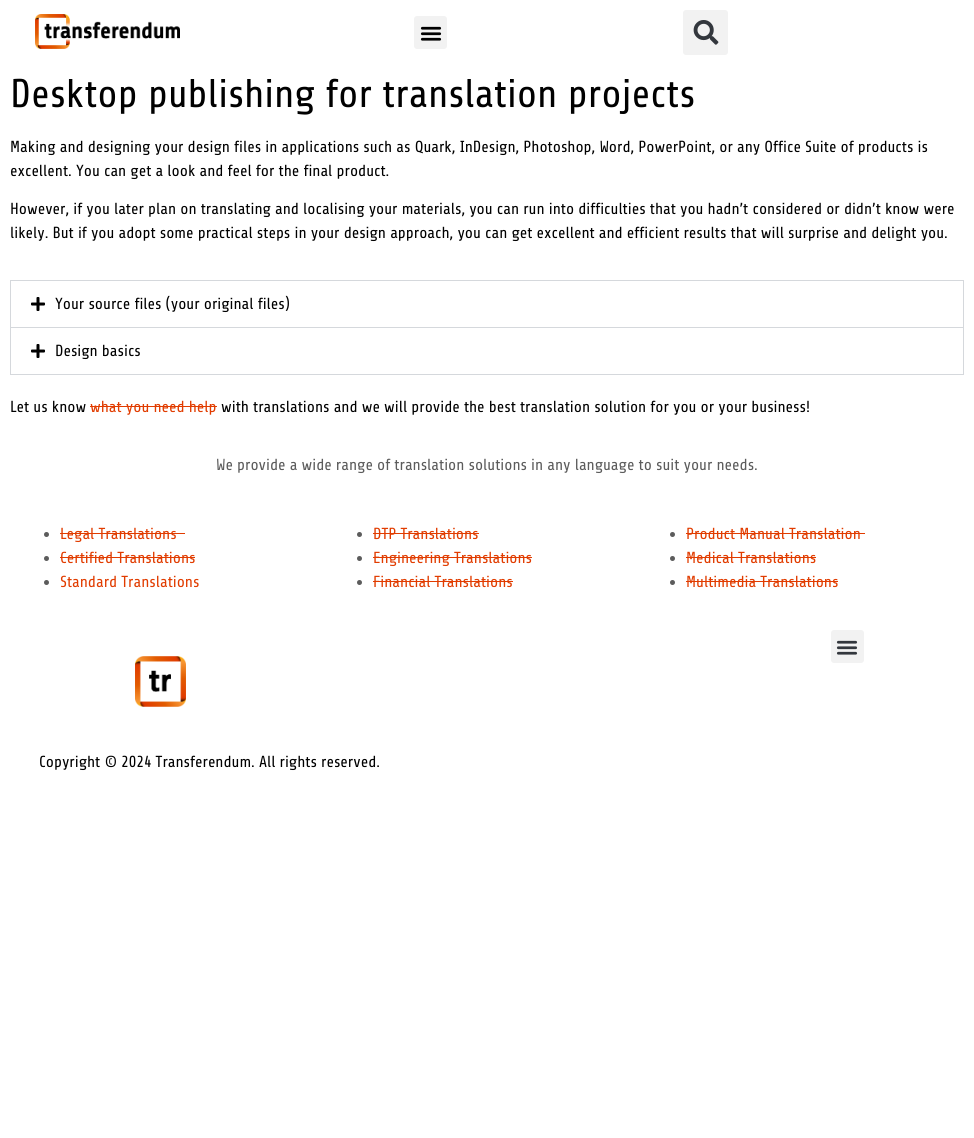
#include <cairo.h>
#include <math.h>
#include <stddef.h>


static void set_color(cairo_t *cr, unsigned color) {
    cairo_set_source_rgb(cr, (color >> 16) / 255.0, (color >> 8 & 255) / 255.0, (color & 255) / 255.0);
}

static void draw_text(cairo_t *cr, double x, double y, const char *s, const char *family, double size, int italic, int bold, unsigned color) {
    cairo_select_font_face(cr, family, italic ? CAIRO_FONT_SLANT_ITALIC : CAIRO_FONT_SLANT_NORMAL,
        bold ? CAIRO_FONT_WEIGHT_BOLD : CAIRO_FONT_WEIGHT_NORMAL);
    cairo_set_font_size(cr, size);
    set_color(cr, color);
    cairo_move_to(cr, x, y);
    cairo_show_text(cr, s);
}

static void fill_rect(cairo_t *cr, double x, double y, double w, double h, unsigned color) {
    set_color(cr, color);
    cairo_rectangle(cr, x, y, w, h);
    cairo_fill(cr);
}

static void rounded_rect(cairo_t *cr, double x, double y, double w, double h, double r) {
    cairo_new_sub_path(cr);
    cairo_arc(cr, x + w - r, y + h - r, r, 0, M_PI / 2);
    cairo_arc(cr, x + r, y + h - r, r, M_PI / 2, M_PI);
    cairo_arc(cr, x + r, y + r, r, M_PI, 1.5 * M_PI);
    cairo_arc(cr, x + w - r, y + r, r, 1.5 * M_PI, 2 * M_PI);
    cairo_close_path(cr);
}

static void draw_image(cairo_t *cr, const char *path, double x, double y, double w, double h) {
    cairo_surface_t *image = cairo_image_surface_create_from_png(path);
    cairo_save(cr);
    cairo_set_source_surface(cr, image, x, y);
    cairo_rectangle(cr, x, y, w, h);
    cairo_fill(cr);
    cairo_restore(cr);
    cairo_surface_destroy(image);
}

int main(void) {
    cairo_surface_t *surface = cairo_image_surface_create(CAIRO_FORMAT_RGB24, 974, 1138);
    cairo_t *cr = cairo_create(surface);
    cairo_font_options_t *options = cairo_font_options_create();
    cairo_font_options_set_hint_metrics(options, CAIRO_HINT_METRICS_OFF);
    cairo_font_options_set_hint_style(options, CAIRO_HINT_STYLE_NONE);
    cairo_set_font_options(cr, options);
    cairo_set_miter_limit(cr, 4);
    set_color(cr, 0xFFFFFF);
    cairo_paint(cr);
    draw_image(cr, "assets/img1.png", 35, 14, 145, 35);
    set_color(cr, 0xF2F2F2);
    rounded_rect(cr, 414, 16, 33, 33, 3);
    cairo_fill(cr);
    draw_image(cr, "assets/img2.png", 420, 26, 22, 15);
    rounded_rect(cr, 683, 10, 45, 45, 3);
    cairo_fill(cr);
    draw_image(cr, "assets/img3.png", 693, 20, 26, 25);
    draw_text(cr, 10, 107, "Desktop publishing for translation projects", "Share", 40, 0, 0, 0x000000);
    draw_text(cr, 10, 152, "Making and designing your design files in applications such as Quark, InDesign, Photoshop, Word, PowerPoint, or any Office Suite of products is", "Share", 16, 0, 0, 0x000000);
    draw_text(cr, 10, 176, "excellent. You can get a look and feel for the final product.", "Share", 16, 0, 0, 0x000000);
    draw_text(cr, 10, 214, "However, if you later plan on translating and localising your materials, you can run into difficulties that you hadn’t considered or didn’t know were", "Share", 16, 0, 0, 0x000000);
    draw_text(cr, 10, 238, "likely. But if you adopt some practical steps in your design approach, you can get excellent and efficient results that will surprise and delight you.", "Share", 16, 0, 0, 0x000000);
    cairo_rectangle(cr, 10.5, 280.5, 953, 47);
    set_color(cr, 0xD5D8DC);
    cairo_set_line_width(cr, 1);
    cairo_stroke(cr);
    draw_image(cr, "assets/img4.png", 31, 297, 14, 14);
    draw_text(cr, 55, 309, "Your source files (your original files)", "Share", 16, 0, 0, 0x000000);
    fill_rect(cr, 963, 328, 1, 47, 0xD5D8DC);
    fill_rect(cr, 10, 374, 954, 1, 0xD5D8DC);
    fill_rect(cr, 10, 328, 1, 47, 0xD5D8DC);
    draw_image(cr, "assets/img4.png", 31, 344, 14, 14);
    draw_text(cr, 55, 356, "Design basics", "Share", 16, 0, 0, 0x000000);
    draw_text(cr, 10, 412, "Let us know", "Share", 16, 0, 0, 0x000000);
    draw_text(cr, 90, 412, "what you need help", "Share", 16, 0, 0, 0xE13C00);
    fill_rect(cr, 90, 406, 127, 1, 0xE13C00);
    draw_text(cr, 221, 412, "with translations and we will provide the best translation solution for you or your business!", "Share", 16, 0, 0, 0x000000);
    draw_text(cr, 216, 470, "We provide a wide range of translation solutions in any language to suit your needs.", "Share", 16, 0, 0, 0x5C5C5C);
    cairo_new_path(cr);
    cairo_arc(cr, 46.5, 534.5, 2.5, 0, 2 * M_PI);
    cairo_fill(cr);
    draw_text(cr, 60, 539, "Legal Translations", "Share", 16, 0, 0, 0xE13C00);
    fill_rect(cr, 60, 533, 125, 1, 0xE13C00);
    set_color(cr, 0x5C5C5C);
    cairo_new_path(cr);
    cairo_arc(cr, 46.5, 558.5, 2.5, 0, 2 * M_PI);
    cairo_fill(cr);
    draw_text(cr, 60, 563, "Certified Translations", "Share", 16, 0, 0, 0xE13C00);
    fill_rect(cr, 60, 557, 135, 1, 0xE13C00);
    set_color(cr, 0x5C5C5C);
    cairo_new_path(cr);
    cairo_arc(cr, 46.5, 582.5, 2.5, 0, 2 * M_PI);
    cairo_fill(cr);
    draw_text(cr, 60, 587, "Standard Translations", "Share", 16, 0, 0, 0xE13C00);
    set_color(cr, 0x5C5C5C);
    cairo_new_path(cr);
    cairo_arc(cr, 359.5, 534.5, 2.5, 0, 2 * M_PI);
    cairo_fill(cr);
    draw_text(cr, 373, 539, "DTP Translations", "Share", 16, 0, 0, 0xE13C00);
    fill_rect(cr, 373, 533, 106, 1, 0xE13C00);
    set_color(cr, 0x5C5C5C);
    cairo_new_path(cr);
    cairo_arc(cr, 359.5, 558.5, 2.5, 0, 2 * M_PI);
    cairo_fill(cr);
    draw_text(cr, 373, 563, "Engineering Translations", "Share", 16, 0, 0, 0xE13C00);
    fill_rect(cr, 373, 557, 159, 1, 0xE13C00);
    set_color(cr, 0x5C5C5C);
    cairo_new_path(cr);
    cairo_arc(cr, 359.5, 582.5, 2.5, 0, 2 * M_PI);
    cairo_fill(cr);
    draw_text(cr, 373, 587, "Financial Translations", "Share", 16, 0, 0, 0xE13C00);
    fill_rect(cr, 373, 581, 140, 1, 0xE13C00);
    set_color(cr, 0x5C5C5C);
    cairo_new_path(cr);
    cairo_arc(cr, 672.5, 534.5, 2.5, 0, 2 * M_PI);
    cairo_fill(cr);
    draw_text(cr, 686, 539, "Product Manual Translation", "Share", 16, 0, 0, 0xE13C00);
    fill_rect(cr, 686, 533, 179, 1, 0xE13C00);
    set_color(cr, 0x5C5C5C);
    cairo_new_path(cr);
    cairo_arc(cr, 672.5, 558.5, 2.5, 0, 2 * M_PI);
    cairo_fill(cr);
    draw_text(cr, 686, 563, "Medical Translations", "Share", 16, 0, 0, 0xE13C00);
    fill_rect(cr, 686, 557, 130, 1, 0xE13C00);
    set_color(cr, 0x5C5C5C);
    cairo_new_path(cr);
    cairo_arc(cr, 672.5, 582.5, 2.5, 0, 2 * M_PI);
    cairo_fill(cr);
    draw_text(cr, 686, 587, "Multimedia Translations", "Share", 16, 0, 0, 0xE13C00);
    fill_rect(cr, 686, 581, 152, 1, 0xE13C00);
    set_color(cr, 0xF2F2F2);
    rounded_rect(cr, 831, 630, 33, 33, 3);
    cairo_fill(cr);
    draw_image(cr, "assets/img5.png", 836, 640, 22, 15);
    draw_image(cr, "assets/img6.png", 135, 656, 51, 51);
    draw_text(cr, 39, 767, "Copyright © 2024 Transferendum. All rights reserved.", "Share", 16, 0, 0, 0x000000);
    cairo_surface_write_to_png(surface, "output.png");
    cairo_font_options_destroy(options);
    cairo_destroy(cr);
    cairo_surface_destroy(surface);
    return 0;
}
